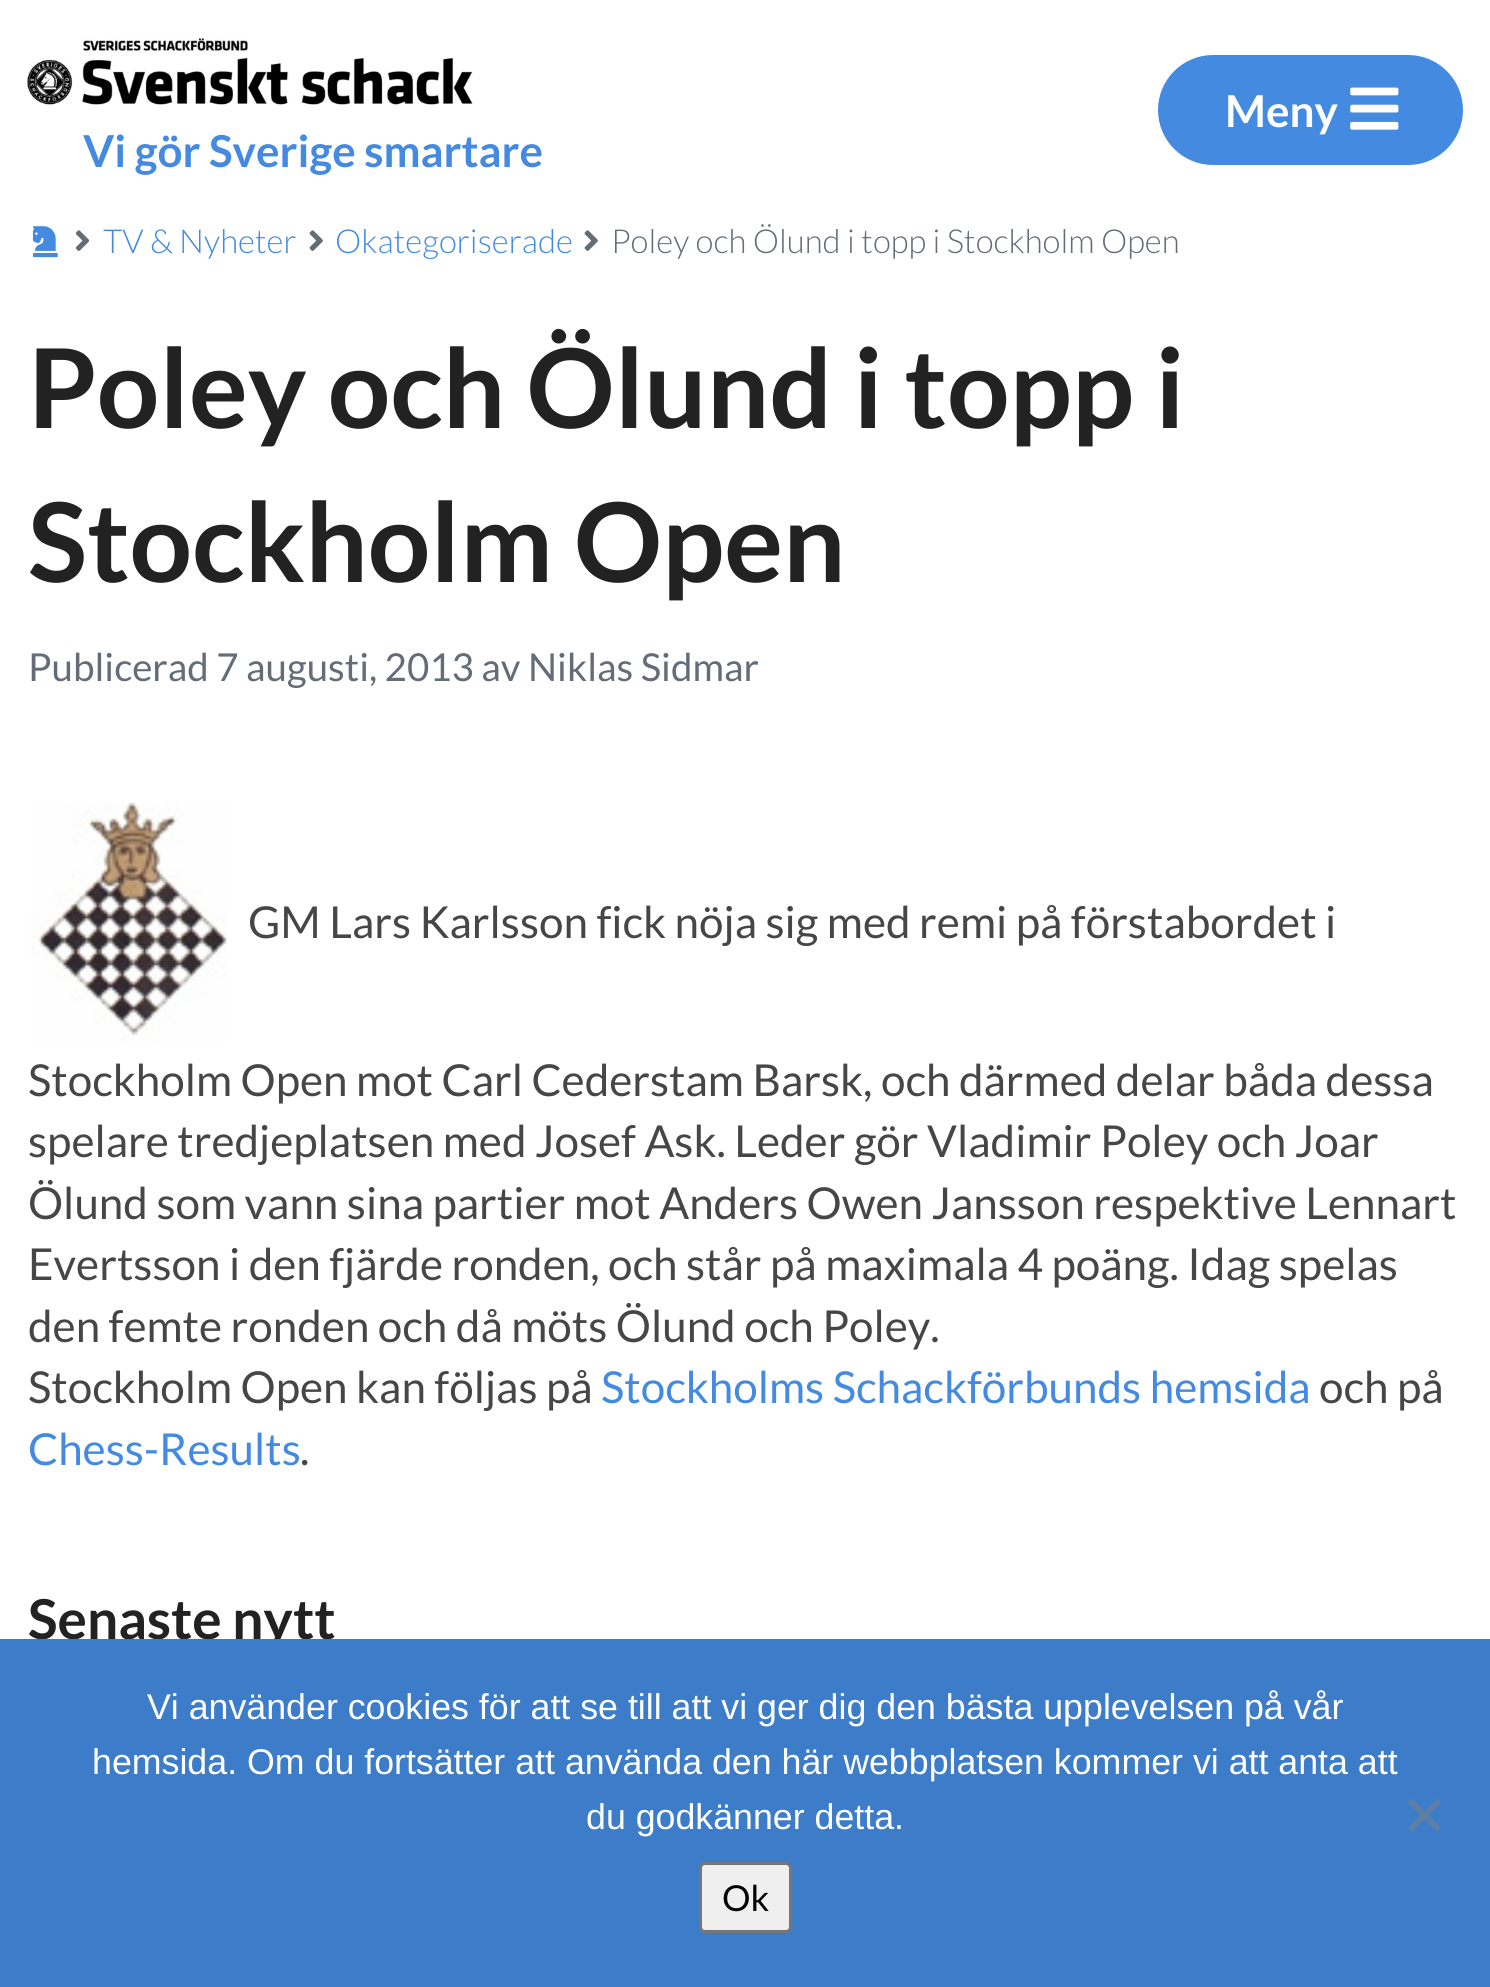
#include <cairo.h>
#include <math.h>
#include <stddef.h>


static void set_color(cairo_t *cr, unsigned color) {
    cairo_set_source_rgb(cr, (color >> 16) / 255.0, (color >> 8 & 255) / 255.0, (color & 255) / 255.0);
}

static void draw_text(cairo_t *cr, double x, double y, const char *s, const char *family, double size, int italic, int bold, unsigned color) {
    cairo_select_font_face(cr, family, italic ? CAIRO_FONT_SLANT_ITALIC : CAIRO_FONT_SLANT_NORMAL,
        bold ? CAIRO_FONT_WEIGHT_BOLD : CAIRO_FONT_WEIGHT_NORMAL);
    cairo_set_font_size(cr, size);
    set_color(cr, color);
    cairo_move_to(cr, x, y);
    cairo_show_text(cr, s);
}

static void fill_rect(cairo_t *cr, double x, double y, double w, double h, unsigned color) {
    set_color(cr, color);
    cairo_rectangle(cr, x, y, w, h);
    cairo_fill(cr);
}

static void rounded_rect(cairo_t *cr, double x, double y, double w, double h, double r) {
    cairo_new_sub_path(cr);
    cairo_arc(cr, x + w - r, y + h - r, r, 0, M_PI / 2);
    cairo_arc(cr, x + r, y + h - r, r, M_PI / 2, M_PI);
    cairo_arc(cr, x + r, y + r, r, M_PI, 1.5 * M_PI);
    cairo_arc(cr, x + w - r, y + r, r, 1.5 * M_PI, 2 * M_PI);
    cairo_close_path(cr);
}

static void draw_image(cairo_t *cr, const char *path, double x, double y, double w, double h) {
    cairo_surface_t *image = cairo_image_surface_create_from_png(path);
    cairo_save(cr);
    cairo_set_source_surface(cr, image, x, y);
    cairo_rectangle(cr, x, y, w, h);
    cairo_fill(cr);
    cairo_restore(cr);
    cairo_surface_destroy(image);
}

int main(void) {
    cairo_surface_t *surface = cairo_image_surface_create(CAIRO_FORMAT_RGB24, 1490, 1987);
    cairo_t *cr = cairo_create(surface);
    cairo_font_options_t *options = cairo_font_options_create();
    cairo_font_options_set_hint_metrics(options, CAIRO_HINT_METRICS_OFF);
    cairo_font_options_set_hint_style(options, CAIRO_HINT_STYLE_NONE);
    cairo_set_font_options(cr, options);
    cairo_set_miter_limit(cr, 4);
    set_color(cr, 0xFFFFFF);
    cairo_paint(cr);
    set_color(cr, 0x448AE1);
    rounded_rect(cr, 1158, 55, 305, 110, 55);
    cairo_fill(cr);
    draw_text(cr, 1225, 127, "Meny", "Lato", 44, 0, 1, 0xFFFFFF);
    draw_image(cr, "assets/img1.png", 1350, 87, 49, 43);
    draw_image(cr, "assets/img2.png", 27, 38, 446, 67);
    draw_text(cr, 83, 167, "Vi gör Sverige smartare", "Lato", 44, 0, 1, 0x448AE1);
    draw_image(cr, "assets/img3.png", 33, 226, 25, 32);
    draw_image(cr, "assets/img4.png", 75, 230, 15, 21);
    draw_text(cr, 103, 253, "TV & Nyheter", "Lato Light", 33, 0, 0, 0x448AE1);
    draw_image(cr, "assets/img5.png", 309, 230, 14, 21);
    draw_text(cr, 335, 253, "Okategoriserade", "Lato Light", 33, 0, 0, 0x448AE1);
    draw_image(cr, "assets/img5.png", 584, 230, 14, 21);
    draw_text(cr, 611, 253, "Poley och Ölund i topp i Stockholm Open", "Lato Light", 33, 0, 0, 0x646C78);
    draw_text(cr, 28, 428, "Poley och Ölund i topp i", "Lato", 110, 0, 1, 0x222222);
    draw_text(cr, 28, 582, "Stockholm Open", "Lato", 110, 0, 1, 0x222222);
    draw_text(cr, 28, 681, "Publicerad 7 augusti, 2013 av Niklas Sidmar", "Lato", 38.5, 0, 0, 0x646C78);
    draw_image(cr, "assets/img6.png", 31, 803, 196, 239);
    draw_text(cr, 248, 938, "GM Lars Karlsson fick nöja sig med remi på förstabordet i", "Lato", 44, 0, 0, 0x464646);
    draw_text(cr, 28, 1096, "Stockholm Open mot Carl Cederstam Barsk, och därmed delar båda dessa", "Lato", 44, 0, 0, 0x464646);
    draw_text(cr, 28, 1157, "spelare tredjeplatsen med Josef Ask. Leder gör Vladimir Poley och Joar", "Lato", 44, 0, 0, 0x464646);
    draw_text(cr, 28, 1219, "Ölund som vann sina partier mot Anders Owen Jansson respektive Lennart", "Lato", 44, 0, 0, 0x464646);
    draw_text(cr, 28, 1280, "Evertsson i den fjärde ronden, och står på maximala 4 poäng. Idag spelas", "Lato", 44, 0, 0, 0x464646);
    draw_text(cr, 28, 1342, "den femte ronden och då möts Ölund och Poley.", "Lato", 44, 0, 0, 0x464646);
    draw_text(cr, 28, 1403, "Stockholm Open kan följas på", "Lato", 44, 0, 0, 0x464646);
    draw_text(cr, 601, 1403, "Stockholms Schackförbunds hemsida", "Lato", 44, 0, 0, 0x448AE1);
    draw_text(cr, 1319, 1403, "och på", "Lato", 44, 0, 0, 0x464646);
    draw_text(cr, 28, 1465, "Chess-Results", "Lato", 44, 0, 0, 0x448AE1);
    draw_text(cr, 300, 1465, ".", "Lato", 44, 0, 0, 0x464646);
    draw_text(cr, 28, 1639, "Senaste nytt", "Lato", 55, 0, 1, 0x222222);
    fill_rect(cr, 0, 1639, 1490, 348, 0x3D7CC9);
    draw_text(cr, 147, 1719, "Vi använder cookies för att se till att vi ger dig den bästa upplevelsen på vår", "Liberation Sans", 35.75, 0, 0, 0xFFFFFF);
    draw_text(cr, 92, 1774, "hemsida. Om du fortsätter att använda den här webbplatsen kommer vi att anta att", "Liberation Sans", 35.75, 0, 0, 0xFFFFFF);
    draw_text(cr, 586, 1829, "du godkänner detta.", "Liberation Sans", 35.75, 0, 0, 0xFFFFFF);
    set_color(cr, 0x5F7EA5);
    cairo_new_path(cr);
    cairo_move_to(cr, 1437, 1798.5);
    cairo_line_to(cr, 1441, 1802.5);
    cairo_line_to(cr, 1412, 1831.5);
    cairo_line_to(cr, 1408, 1827.5);
    cairo_close_path(cr);
    cairo_fill(cr);
    cairo_new_path(cr);
    cairo_move_to(cr, 1408, 1802.5);
    cairo_line_to(cr, 1412, 1798.5);
    cairo_line_to(cr, 1441, 1827.5);
    cairo_line_to(cr, 1437, 1831.5);
    cairo_close_path(cr);
    cairo_fill(cr);
    set_color(cr, 0xEFEFEF);
    rounded_rect(cr, 700.5, 1863.5, 90, 68, 4.5);
    cairo_fill_preserve(cr);
    set_color(cr, 0x767676);
    cairo_set_line_width(cr, 3);
    cairo_stroke(cr);
    draw_text(cr, 722, 1911, "Ok", "Lato", 35.75, 0, 0, 0x000000);
    cairo_surface_write_to_png(surface, "output.png");
    cairo_font_options_destroy(options);
    cairo_destroy(cr);
    cairo_surface_destroy(surface);
    return 0;
}
